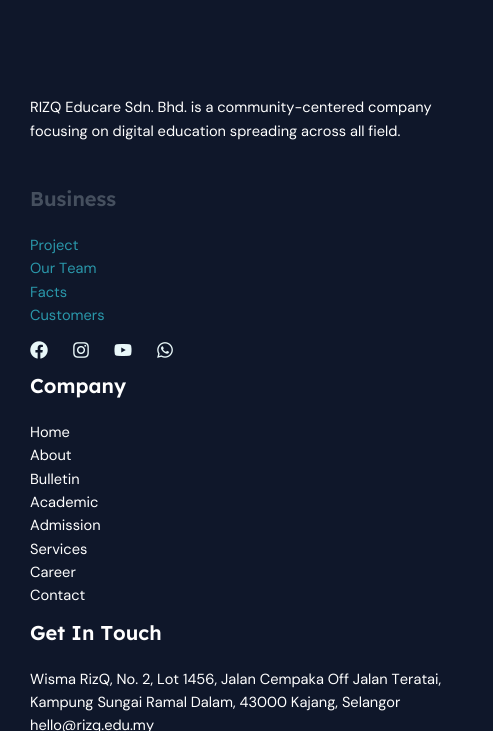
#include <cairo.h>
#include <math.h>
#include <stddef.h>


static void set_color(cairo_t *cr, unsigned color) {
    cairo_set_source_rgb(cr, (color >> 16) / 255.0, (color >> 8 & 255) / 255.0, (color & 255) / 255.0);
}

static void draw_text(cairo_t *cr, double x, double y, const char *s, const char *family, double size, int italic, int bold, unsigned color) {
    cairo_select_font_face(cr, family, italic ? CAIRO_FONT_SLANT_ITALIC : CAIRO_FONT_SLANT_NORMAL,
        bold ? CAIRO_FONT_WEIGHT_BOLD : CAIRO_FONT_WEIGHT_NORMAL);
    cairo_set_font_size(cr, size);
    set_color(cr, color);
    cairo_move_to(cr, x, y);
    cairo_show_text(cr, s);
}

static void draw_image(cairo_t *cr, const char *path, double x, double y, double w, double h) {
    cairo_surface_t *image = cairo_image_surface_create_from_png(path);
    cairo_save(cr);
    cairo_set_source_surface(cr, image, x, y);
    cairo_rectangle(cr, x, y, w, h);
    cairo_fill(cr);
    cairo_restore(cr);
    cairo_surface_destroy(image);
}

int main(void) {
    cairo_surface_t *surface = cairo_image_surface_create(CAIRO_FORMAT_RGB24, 493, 731);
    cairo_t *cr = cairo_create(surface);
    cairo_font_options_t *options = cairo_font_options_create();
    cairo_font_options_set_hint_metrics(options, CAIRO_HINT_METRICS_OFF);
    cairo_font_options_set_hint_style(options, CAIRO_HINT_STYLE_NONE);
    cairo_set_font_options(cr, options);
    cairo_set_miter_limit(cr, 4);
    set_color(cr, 0x0F172A);
    cairo_paint(cr);
    draw_text(cr, 30, 112, "RIZQ Educare Sdn. Bhd. is a community-centered company", "DM Sans", 14.6, 0, 0, 0xFFFFFF);
    draw_text(cr, 30, 136, "focusing on digital education spreading across all field.", "DM Sans", 14.6, 0, 0, 0xFFFFFF);
    draw_text(cr, 30, 206, "Business", "Lexend SemiBold", 20, 0, 0, 0x454F5E);
    draw_text(cr, 30, 250, "Project", "DM Sans", 14.6, 0, 0, 0x2997AA);
    draw_text(cr, 30, 273, "Our Team", "DM Sans", 14.6, 0, 0, 0x2997AA);
    draw_text(cr, 30, 297, "Facts", "DM Sans", 14.6, 0, 0, 0x2997AA);
    draw_text(cr, 30, 320, "Customers", "DM Sans", 14.6, 0, 0, 0x2997AA);
    draw_image(cr, "assets/img1.png", 30, 341, 18, 18);
    draw_image(cr, "assets/img2.png", 73, 342, 16, 16);
    draw_image(cr, "assets/img3.png", 114, 344, 18, 12);
    draw_image(cr, "assets/img4.png", 157, 342, 16, 16);
    draw_text(cr, 30, 393, "Company", "Lexend SemiBold", 20, 0, 0, 0xFFFFFF);
    draw_text(cr, 30, 437, "Home", "DM Sans", 14.6, 0, 0, 0xFFFFFF);
    draw_text(cr, 30, 460, "About", "DM Sans", 14.6, 0, 0, 0xFFFFFF);
    draw_text(cr, 30, 484, "Bulletin", "DM Sans", 14.6, 0, 0, 0xFFFFFF);
    draw_text(cr, 30, 507, "Academic", "DM Sans", 14.6, 0, 0, 0xFFFFFF);
    draw_text(cr, 30, 530, "Admission", "DM Sans", 14.6, 0, 0, 0xFFFFFF);
    draw_text(cr, 30, 554, "Services", "DM Sans", 14.6, 0, 0, 0xFFFFFF);
    draw_text(cr, 30, 577, "Career", "DM Sans", 14.6, 0, 0, 0xFFFFFF);
    draw_text(cr, 30, 600, "Contact", "DM Sans", 14.6, 0, 0, 0xFFFFFF);
    draw_text(cr, 30, 640, "Get In Touch", "Lexend SemiBold", 20, 0, 0, 0xFFFFFF);
    draw_text(cr, 30, 684, "Wisma RizQ, No. 2, Lot 1456, Jalan Cempaka Off Jalan Teratai,", "DM Sans", 14.6, 0, 0, 0xFFFFFF);
    draw_text(cr, 30, 707, "Kampung Sungai Ramal Dalam, 43000 Kajang, Selangor", "DM Sans", 14.6, 0, 0, 0xFFFFFF);
    draw_text(cr, 30, 730, "hello@rizq.edu.my", "DM Sans", 14.6, 0, 0, 0xFFFFFF);
    cairo_surface_write_to_png(surface, "output.png");
    cairo_font_options_destroy(options);
    cairo_destroy(cr);
    cairo_surface_destroy(surface);
    return 0;
}
